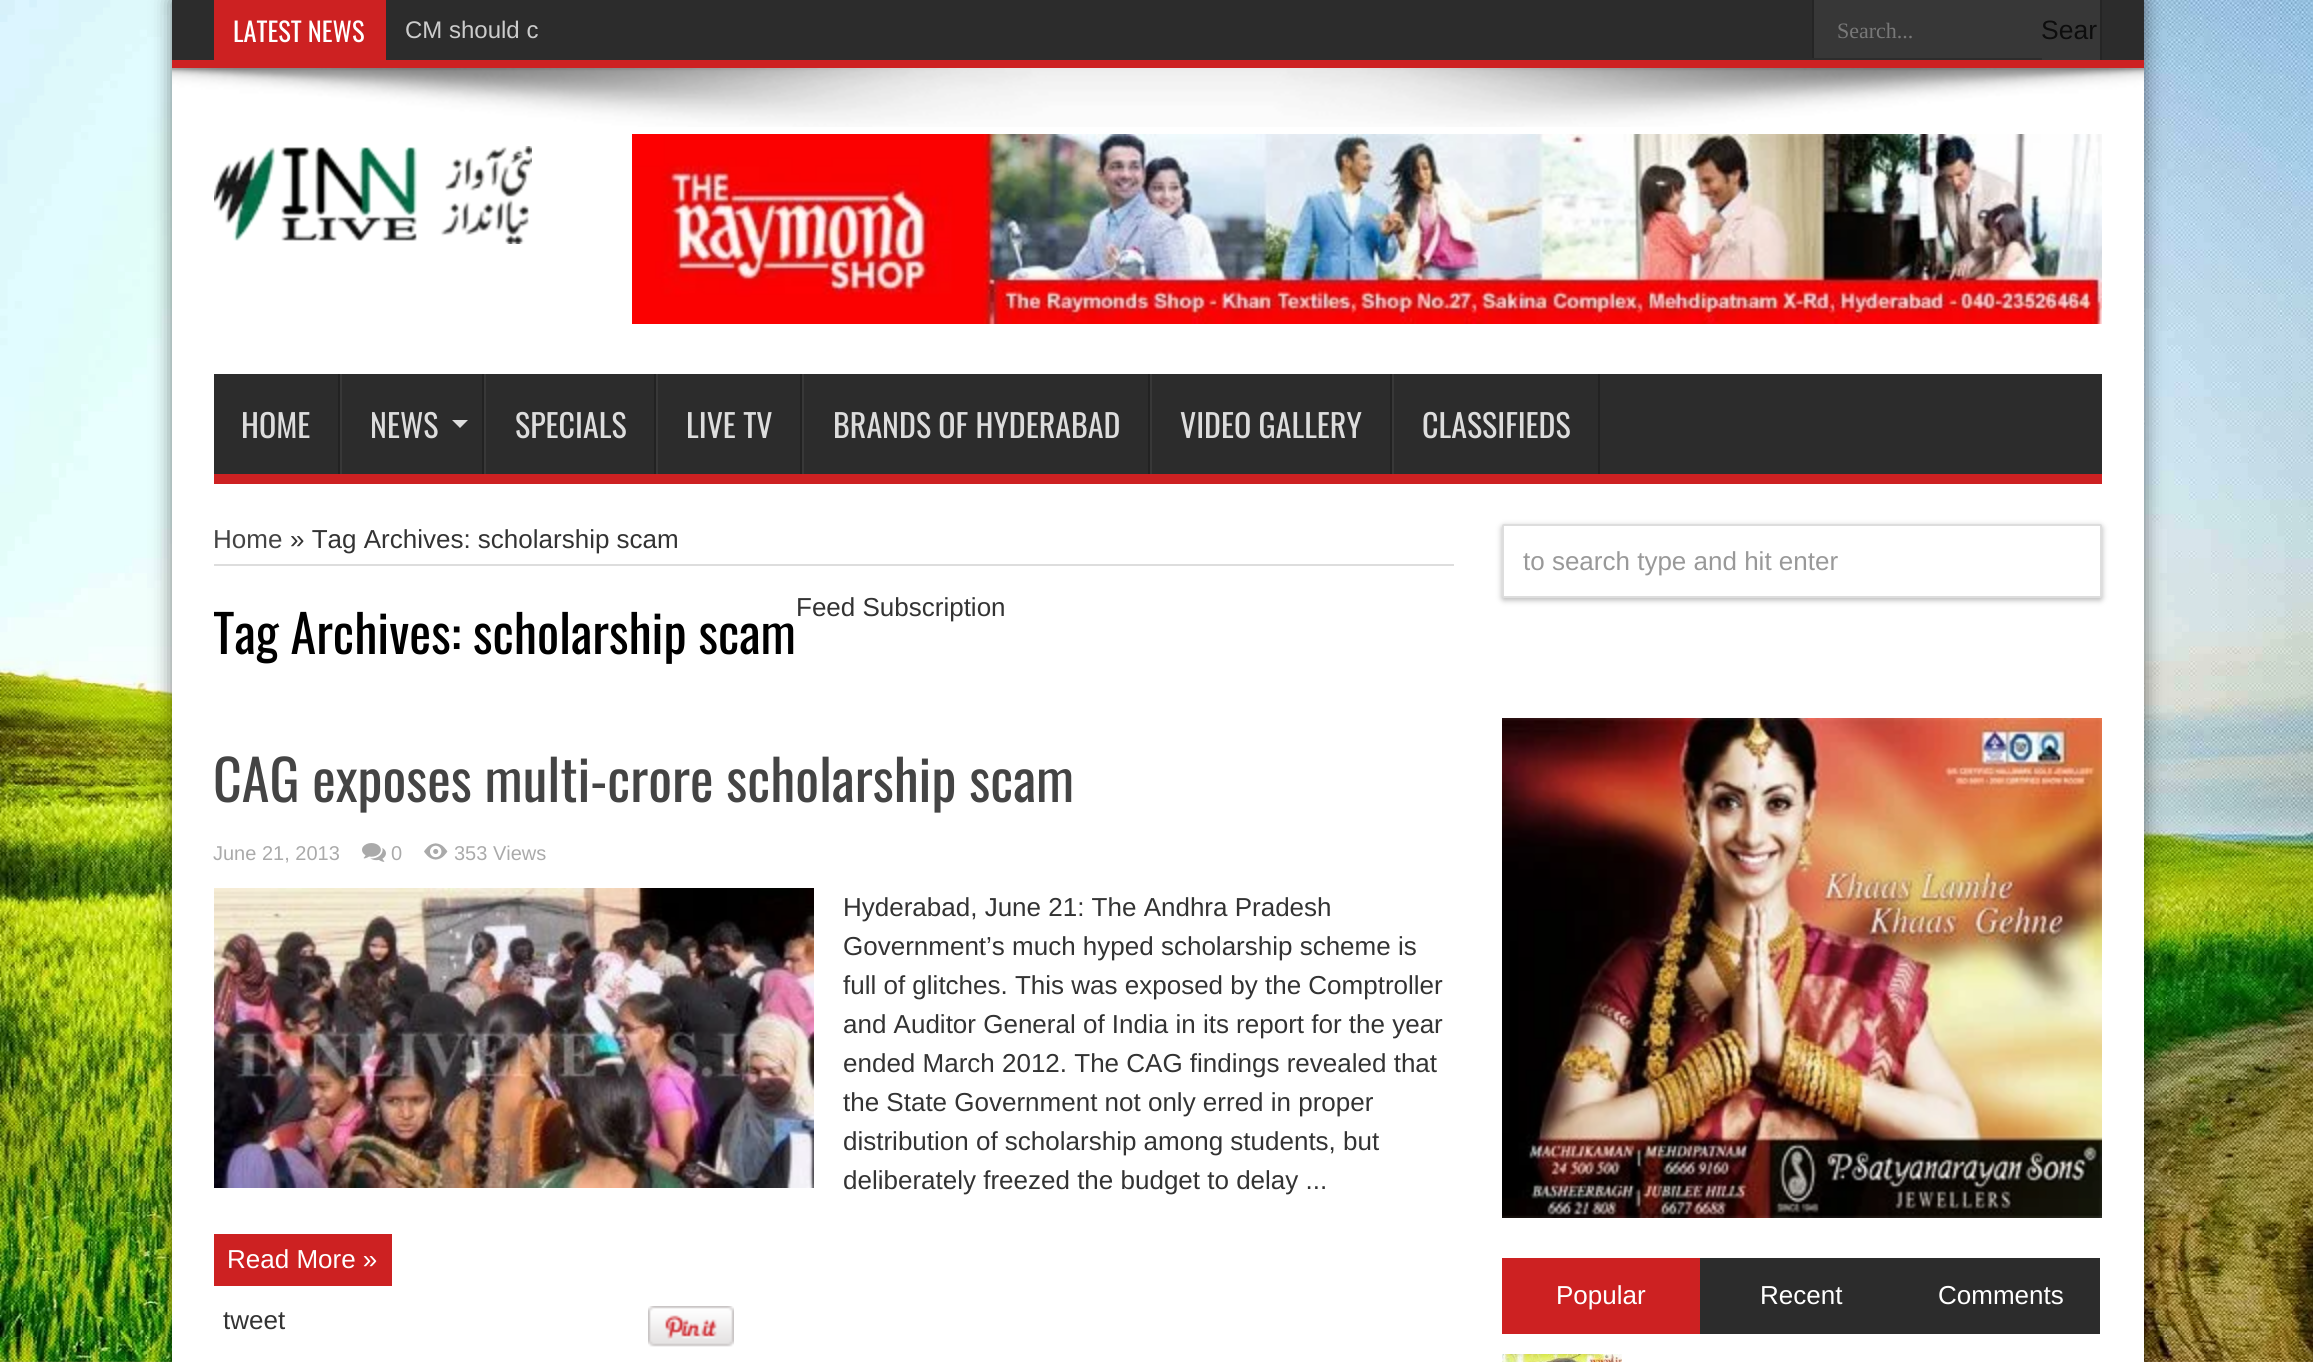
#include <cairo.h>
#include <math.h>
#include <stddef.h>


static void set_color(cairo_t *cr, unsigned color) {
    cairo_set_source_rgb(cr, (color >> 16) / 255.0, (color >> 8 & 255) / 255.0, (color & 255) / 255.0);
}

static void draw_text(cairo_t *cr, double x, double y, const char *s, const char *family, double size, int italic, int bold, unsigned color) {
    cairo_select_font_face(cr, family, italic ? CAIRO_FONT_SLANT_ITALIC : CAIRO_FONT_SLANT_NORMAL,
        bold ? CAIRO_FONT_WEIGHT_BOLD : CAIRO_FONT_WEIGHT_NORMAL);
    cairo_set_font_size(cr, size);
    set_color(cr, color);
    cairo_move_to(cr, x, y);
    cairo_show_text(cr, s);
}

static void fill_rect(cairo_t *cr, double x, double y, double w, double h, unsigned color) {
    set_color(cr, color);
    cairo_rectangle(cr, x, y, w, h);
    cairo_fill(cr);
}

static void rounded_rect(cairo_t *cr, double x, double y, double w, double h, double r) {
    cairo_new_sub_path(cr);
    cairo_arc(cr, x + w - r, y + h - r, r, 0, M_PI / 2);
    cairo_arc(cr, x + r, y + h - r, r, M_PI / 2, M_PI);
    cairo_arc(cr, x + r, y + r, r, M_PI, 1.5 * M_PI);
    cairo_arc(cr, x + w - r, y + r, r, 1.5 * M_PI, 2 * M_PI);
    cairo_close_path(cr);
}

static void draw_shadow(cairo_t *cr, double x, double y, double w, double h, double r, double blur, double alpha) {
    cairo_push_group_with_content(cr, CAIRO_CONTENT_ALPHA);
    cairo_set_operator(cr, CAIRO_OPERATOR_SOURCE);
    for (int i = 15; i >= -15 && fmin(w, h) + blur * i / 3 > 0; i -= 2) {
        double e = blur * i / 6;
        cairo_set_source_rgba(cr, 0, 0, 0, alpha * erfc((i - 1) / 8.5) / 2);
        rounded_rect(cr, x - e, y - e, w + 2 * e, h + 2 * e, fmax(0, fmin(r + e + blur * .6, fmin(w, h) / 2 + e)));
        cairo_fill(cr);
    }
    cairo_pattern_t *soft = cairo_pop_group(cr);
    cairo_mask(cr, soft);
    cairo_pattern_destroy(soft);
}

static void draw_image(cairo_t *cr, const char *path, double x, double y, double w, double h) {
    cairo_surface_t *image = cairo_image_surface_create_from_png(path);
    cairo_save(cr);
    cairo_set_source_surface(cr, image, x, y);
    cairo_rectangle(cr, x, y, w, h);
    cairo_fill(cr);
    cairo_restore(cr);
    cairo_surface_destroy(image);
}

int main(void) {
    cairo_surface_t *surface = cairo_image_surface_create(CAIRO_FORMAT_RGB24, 2313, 1362);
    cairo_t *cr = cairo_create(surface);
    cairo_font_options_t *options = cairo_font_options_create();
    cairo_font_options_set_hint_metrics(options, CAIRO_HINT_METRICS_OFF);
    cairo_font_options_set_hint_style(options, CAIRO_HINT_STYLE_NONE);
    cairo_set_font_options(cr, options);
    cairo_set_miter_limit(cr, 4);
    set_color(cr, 0xFFFFFF);
    cairo_paint(cr);
    draw_image(cr, "assets/img1.png", 0, 1361, 2313, 1);
    draw_image(cr, "assets/img2.png", 0, 0, 2313, 1362);
    set_color(cr, 0x000000);
    draw_shadow(cr, 172, 0, 1972, 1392, 0, 10, 0.5);
    fill_rect(cr, 172, 68, 1972, 1294, 0xFFFFFF);
    fill_rect(cr, 172, 0, 1972, 60, 0x2C2C2C);
    fill_rect(cr, 172, 60, 1972, 8, 0xCD2122);
    fill_rect(cr, 214, 0, 172, 60, 0xCD2122);
    draw_text(cr, 233, 42, "LATEST NEWS", "Oswald", 26.5, 0, 0, 0xFFFFFF);
    draw_text(cr, 405, 38, "CM should c", "Liberation Sans", 24, 0, 0, 0xCCCCCC);
    fill_rect(cr, 1814, 0, 228, 58, 0x373737);
    fill_rect(cr, 1812, 0, 2, 58, 0x252525);
    draw_text(cr, 1837, 38, "Search...", "Liberation Serif", 22, 0, 0, 0x787878);
    fill_rect(cr, 2042, 0, 58, 60, 0x373737);
    fill_rect(cr, 2100, 0, 2, 60, 0x252525);
    draw_text(cr, 2041, 39, "Sear", "Liberation Sans", 26.5, 0, 0, 0x0D0D0D);
    draw_image(cr, "assets/img3.png", 172, 68, 1972, 59);
    draw_image(cr, "assets/img4.png", 214, 146, 318, 98);
    draw_image(cr, "assets/img5.png", 632, 134, 1470, 190);
    fill_rect(cr, 214, 374, 1888, 100, 0x2C2C2C);
    fill_rect(cr, 214, 474, 1888, 10, 0xCD2122);
    draw_text(cr, 241, 438, "HOME", "Oswald", 32, 0, 0, 0xDDDDDD);
    fill_rect(cr, 338, 374, 2, 100, 0x222222);
    fill_rect(cr, 340, 374, 2, 100, 0x383838);
    draw_text(cr, 370, 438, "NEWS", "Oswald", 32, 0, 0, 0xDDDDDD);
    cairo_new_path(cr);
    cairo_move_to(cr, 452, 420);
    cairo_line_to(cr, 468, 420);
    cairo_line_to(cr, 460, 428);
    cairo_close_path(cr);
    cairo_fill(cr);
    fill_rect(cr, 482, 374, 2, 100, 0x222222);
    fill_rect(cr, 484, 374, 2, 100, 0x383838);
    draw_text(cr, 515, 438, "SPECIALS", "Oswald", 32, 0, 0, 0xDDDDDD);
    fill_rect(cr, 654, 374, 2, 100, 0x222222);
    fill_rect(cr, 656, 374, 2, 100, 0x383838);
    draw_text(cr, 686, 438, "LIVE TV", "Oswald", 32, 0, 0, 0xDDDDDD);
    fill_rect(cr, 800, 374, 2, 100, 0x222222);
    fill_rect(cr, 802, 374, 2, 100, 0x383838);
    draw_text(cr, 833, 438, "BRANDS OF HYDERABAD", "Oswald", 32, 0, 0, 0xDDDDDD);
    fill_rect(cr, 1148, 374, 2, 100, 0x222222);
    fill_rect(cr, 1150, 374, 2, 100, 0x383838);
    draw_text(cr, 1180, 438, "VIDEO GALLERY", "Oswald", 32, 0, 0, 0xDDDDDD);
    fill_rect(cr, 1390, 374, 2, 100, 0x222222);
    fill_rect(cr, 1392, 374, 2, 100, 0x383838);
    draw_text(cr, 1422, 438, "CLASSIFIEDS", "Oswald", 32, 0, 0, 0xDDDDDD);
    fill_rect(cr, 1598, 374, 2, 100, 0x222222);
    fill_rect(cr, 214, 564, 1240, 2, 0xDDDDDD);
    draw_text(cr, 213, 548, "Home", "Liberation Sans", 26, 0, 0, 0x444444);
    draw_text(cr, 290, 548, "» Tag Archives: scholarship scam", "Liberation Sans", 26, 0, 0, 0x333333);
    cairo_save(cr);
    cairo_rectangle(cr, 214, 586, 1240, 110);
    cairo_clip(cr);
    draw_text(cr, 213, 654, "Tag Archives:", "Oswald", 52, 0, 0, 0x000000);
    cairo_restore(cr);
    draw_text(cr, 473, 654, "scholarship scam", "Oswald", 52, 0, 0, 0x000000);
    draw_text(cr, 796, 616, "Feed Subscription", "Liberation Sans", 26, 0, 0, 0x333333);
    draw_text(cr, 213, 802, "CAG exposes multi-crore scholarship scam", "Oswald", 56, 0, 0, 0x444444);
    draw_text(cr, 213, 860, "June 21, 2013", "Liberation Sans", 20, 0, 0, 0xAAAAAA);
    draw_image(cr, "assets/img6.png", 362, 843, 24, 19);
    draw_text(cr, 391, 860, "0", "Liberation Sans", 20, 0, 0, 0xAAAAAA);
    draw_image(cr, "assets/img7.png", 424, 843, 24, 17);
    draw_text(cr, 454, 860, "353 Views", "Liberation Sans", 20, 0, 0, 0xAAAAAA);
    draw_image(cr, "assets/img8.png", 214, 888, 600, 300);
    draw_text(cr, 843, 916, "Hyderabad, June 21: The Andhra Pradesh", "Liberation Sans", 26, 0, 0, 0x333333);
    draw_text(cr, 843, 955, "Government’s much hyped scholarship scheme is", "Liberation Sans", 26, 0, 0, 0x333333);
    draw_text(cr, 843, 994, "full of glitches. This was exposed by the Comptroller", "Liberation Sans", 26, 0, 0, 0x333333);
    draw_text(cr, 843, 1033, "and Auditor General of India in its report for the year", "Liberation Sans", 26, 0, 0, 0x333333);
    draw_text(cr, 843, 1072, "ended March 2012. The CAG findings revealed that", "Liberation Sans", 26, 0, 0, 0x333333);
    draw_text(cr, 843, 1111, "the State Government not only erred in proper", "Liberation Sans", 26, 0, 0, 0x333333);
    draw_text(cr, 843, 1150, "distribution of scholarship among students, but", "Liberation Sans", 26, 0, 0, 0x333333);
    draw_text(cr, 843, 1189, "deliberately freezed the budget to delay ...", "Liberation Sans", 26, 0, 0, 0x333333);
    fill_rect(cr, 214, 1234, 178, 52, 0xCD2122);
    draw_text(cr, 227, 1268, "Read More »", "Liberation Sans", 26, 0, 0, 0xFFFFFF);
    draw_text(cr, 223, 1329, "tweet", "Liberation Sans", 26, 0, 0, 0x333333);
    draw_image(cr, "assets/img9.png", 648, 1306, 86, 41);
    set_color(cr, 0xB5B5B5);
    draw_shadow(cr, 1502, 526, 600, 74, 2, 3, 1);
    set_color(cr, 0xFFFFFF);
    rounded_rect(cr, 1503, 525, 598, 72, 1);
    cairo_fill_preserve(cr);
    set_color(cr, 0xDDDDDD);
    cairo_stroke(cr);
    draw_text(cr, 1523, 570, "to search type and hit enter", "Liberation Sans", 26, 0, 0, 0x999999);
    draw_image(cr, "assets/img10.png", 1502, 718, 600, 500);
    fill_rect(cr, 1502, 1258, 198, 76, 0xCD2122);
    draw_text(cr, 1556, 1304, "Popular", "Liberation Sans", 26, 0, 0, 0xFFFFFF);
    fill_rect(cr, 1700, 1258, 400, 76, 0x2C2C2C);
    draw_text(cr, 1760, 1304, "Recent", "Liberation Sans", 26, 0, 0, 0xFFFFFF);
    draw_text(cr, 1938, 1304, "Comments", "Liberation Sans", 26, 0, 0, 0xFFFFFF);
    draw_image(cr, "assets/img11.png", 1502, 1354, 120, 8);
    cairo_surface_write_to_png(surface, "output.png");
    cairo_font_options_destroy(options);
    cairo_destroy(cr);
    cairo_surface_destroy(surface);
    return 0;
}
